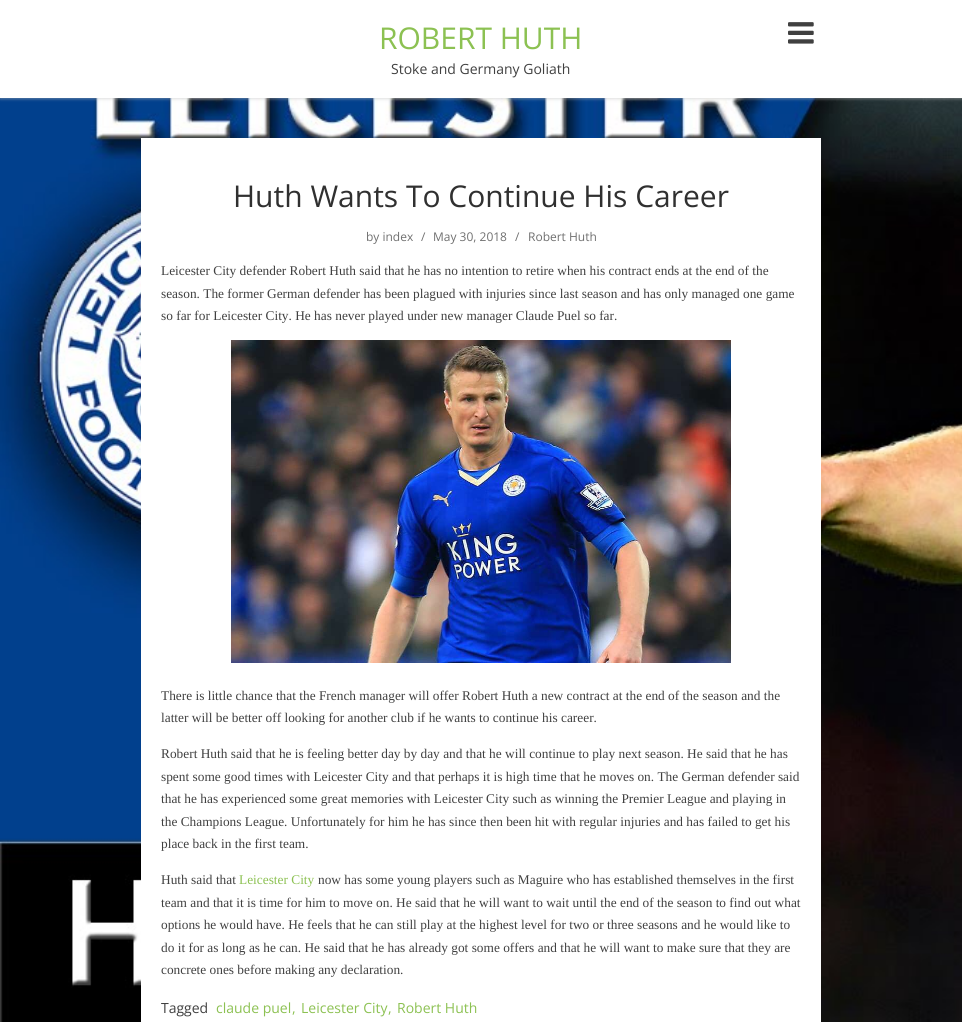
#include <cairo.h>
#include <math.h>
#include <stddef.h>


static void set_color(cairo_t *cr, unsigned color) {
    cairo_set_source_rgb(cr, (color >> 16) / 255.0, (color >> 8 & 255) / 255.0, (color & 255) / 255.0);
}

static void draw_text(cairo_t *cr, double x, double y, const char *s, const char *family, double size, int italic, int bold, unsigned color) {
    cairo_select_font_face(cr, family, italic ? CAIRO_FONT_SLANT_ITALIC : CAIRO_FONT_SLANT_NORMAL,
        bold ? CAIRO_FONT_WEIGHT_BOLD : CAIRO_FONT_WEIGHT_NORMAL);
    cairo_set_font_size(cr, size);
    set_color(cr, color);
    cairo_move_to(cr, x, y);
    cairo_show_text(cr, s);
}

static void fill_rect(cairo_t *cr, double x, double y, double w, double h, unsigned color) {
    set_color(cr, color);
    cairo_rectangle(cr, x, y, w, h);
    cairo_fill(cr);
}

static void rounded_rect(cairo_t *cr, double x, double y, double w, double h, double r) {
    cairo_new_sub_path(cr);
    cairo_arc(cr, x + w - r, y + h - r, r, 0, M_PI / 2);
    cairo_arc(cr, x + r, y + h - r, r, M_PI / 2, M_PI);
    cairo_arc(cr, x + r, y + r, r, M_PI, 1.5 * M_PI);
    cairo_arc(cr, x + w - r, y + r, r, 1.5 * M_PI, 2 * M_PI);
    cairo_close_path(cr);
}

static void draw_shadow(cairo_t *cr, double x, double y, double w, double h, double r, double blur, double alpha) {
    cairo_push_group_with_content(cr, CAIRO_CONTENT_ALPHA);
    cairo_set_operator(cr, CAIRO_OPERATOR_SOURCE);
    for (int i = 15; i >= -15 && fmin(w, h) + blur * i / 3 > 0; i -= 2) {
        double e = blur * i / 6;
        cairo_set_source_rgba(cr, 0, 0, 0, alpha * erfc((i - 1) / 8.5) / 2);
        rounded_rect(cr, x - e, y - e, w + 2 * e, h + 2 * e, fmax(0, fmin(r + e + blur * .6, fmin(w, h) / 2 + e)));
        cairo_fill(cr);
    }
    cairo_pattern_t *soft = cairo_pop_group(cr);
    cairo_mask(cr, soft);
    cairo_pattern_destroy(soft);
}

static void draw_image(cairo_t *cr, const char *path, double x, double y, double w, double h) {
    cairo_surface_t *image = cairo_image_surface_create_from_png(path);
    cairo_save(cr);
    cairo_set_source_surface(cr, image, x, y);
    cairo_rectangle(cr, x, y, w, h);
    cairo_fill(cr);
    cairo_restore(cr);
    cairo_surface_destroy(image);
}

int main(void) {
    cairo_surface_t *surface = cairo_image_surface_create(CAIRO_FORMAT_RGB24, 962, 1022);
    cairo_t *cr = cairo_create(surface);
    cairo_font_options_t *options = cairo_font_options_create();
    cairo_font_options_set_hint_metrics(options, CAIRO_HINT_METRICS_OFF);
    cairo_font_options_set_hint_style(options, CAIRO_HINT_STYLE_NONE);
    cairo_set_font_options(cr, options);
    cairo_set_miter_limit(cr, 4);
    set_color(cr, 0xFFFFFF);
    cairo_paint(cr);
    draw_image(cr, "assets/img1.png", 0, 98, 962, 924);
    set_color(cr, 0xBEBEBE);
    draw_shadow(cr, 0, 1, 962, 98, 0, 1.5, 0.5);
    fill_rect(cr, 0, 0, 962, 98, 0xFFFFFF);
    draw_text(cr, 379, 49, "ROBERT HUTH", "Open Sans", 30, 0, 0, 0x8CC152);
    draw_text(cr, 391, 74, "Stoke and Germany Goliath", "Open Sans", 14, 0, 0, 0x404040);
    draw_image(cr, "assets/img2.png", 788, 22, 26, 22);
    fill_rect(cr, 141, 138, 680, 884, 0xFFFFFF);
    draw_text(cr, 233, 207, "Huth Wants To Continue His Career", "Open Sans", 30, 0, 0, 0x303030);
    draw_text(cr, 366, 241, "by index", "Open Sans", 12, 0, 0, 0x707070);
    draw_text(cr, 421, 241, "/", "Open Sans", 12, 0, 0, 0x707070);
    draw_text(cr, 433, 241, "May 30, 2018", "Open Sans", 12, 0, 0, 0x707070);
    draw_text(cr, 515, 241, "/", "Open Sans", 12, 0, 0, 0x707070);
    draw_text(cr, 528, 241, "Robert Huth", "Open Sans", 12, 0, 0, 0x707070);
    draw_text(cr, 161, 275, "Leicester City defender Robert Huth said that he has no intention to retire when his contract ends at the end of the", "Liberation Serif", 13.35, 0, 0, 0x404040);
    draw_text(cr, 161, 298, "season. The former German defender has been plagued with injuries since last season and has only managed one game", "Liberation Serif", 13.35, 0, 0, 0x404040);
    draw_text(cr, 161, 320, "so far for Leicester City. He has never played under new manager Claude Puel so far.", "Liberation Serif", 13.35, 0, 0, 0x404040);
    draw_image(cr, "assets/img3.png", 231, 340, 500, 323);
    draw_text(cr, 161, 700, "There is little chance that the French manager will offer Robert Huth a new contract at the end of the season and the", "Liberation Serif", 13.35, 0, 0, 0x404040);
    draw_text(cr, 161, 722, "latter will be better off looking for another club if he wants to continue his career.", "Liberation Serif", 13.35, 0, 0, 0x404040);
    draw_text(cr, 161, 758, "Robert Huth said that he is feeling better day by day and that he will continue to play next season. He said that he has", "Liberation Serif", 13.35, 0, 0, 0x404040);
    draw_text(cr, 161, 781, "spent some good times with Leicester City and that perhaps it is high time that he moves on. The German defender said", "Liberation Serif", 13.35, 0, 0, 0x404040);
    draw_text(cr, 161, 803, "that he has experienced some great memories with Leicester City such as winning the Premier League and playing in", "Liberation Serif", 13.35, 0, 0, 0x404040);
    draw_text(cr, 161, 826, "the Champions League. Unfortunately for him he has since then been hit with regular injuries and has failed to get his", "Liberation Serif", 13.35, 0, 0, 0x404040);
    draw_text(cr, 161, 848, "place back in the first team.", "Liberation Serif", 13.35, 0, 0, 0x404040);
    draw_text(cr, 161, 884, "Huth said that", "Liberation Serif", 13.35, 0, 0, 0x404040);
    draw_text(cr, 239, 884, "Leicester City", "Liberation Serif", 13.35, 0, 0, 0x8CC152);
    draw_text(cr, 318, 884, "now has some young players such as Maguire who has established themselves in the first", "Liberation Serif", 13.35, 0, 0, 0x404040);
    draw_text(cr, 161, 907, "team and that it is time for him to move on. He said that he will want to wait until the end of the season to find out what", "Liberation Serif", 13.35, 0, 0, 0x404040);
    draw_text(cr, 161, 929, "options he would have. He feels that he can still play at the highest level for two or three seasons and he would like to", "Liberation Serif", 13.35, 0, 0, 0x404040);
    draw_text(cr, 161, 952, "do it for as long as he can. He said that he has already got some offers and that he will want to make sure that they are", "Liberation Serif", 13.35, 0, 0, 0x404040);
    draw_text(cr, 161, 974, "concrete ones before making any declaration.", "Liberation Serif", 13.35, 0, 0, 0x404040);
    draw_text(cr, 161, 1013, "Tagged", "Open Sans", 14, 0, 0, 0x404040);
    draw_text(cr, 216, 1013, "claude puel", "Open Sans", 14, 0, 0, 0x8CC152);
    draw_text(cr, 292, 1013, ",", "Open Sans", 14, 0, 0, 0x8CC152);
    draw_text(cr, 301, 1013, "Leicester City", "Open Sans", 14, 0, 0, 0x8CC152);
    draw_text(cr, 388, 1013, ",", "Open Sans", 14, 0, 0, 0x8CC152);
    draw_text(cr, 397, 1013, "Robert Huth", "Open Sans", 14, 0, 0, 0x8CC152);
    cairo_surface_write_to_png(surface, "output.png");
    cairo_font_options_destroy(options);
    cairo_destroy(cr);
    cairo_surface_destroy(surface);
    return 0;
}
